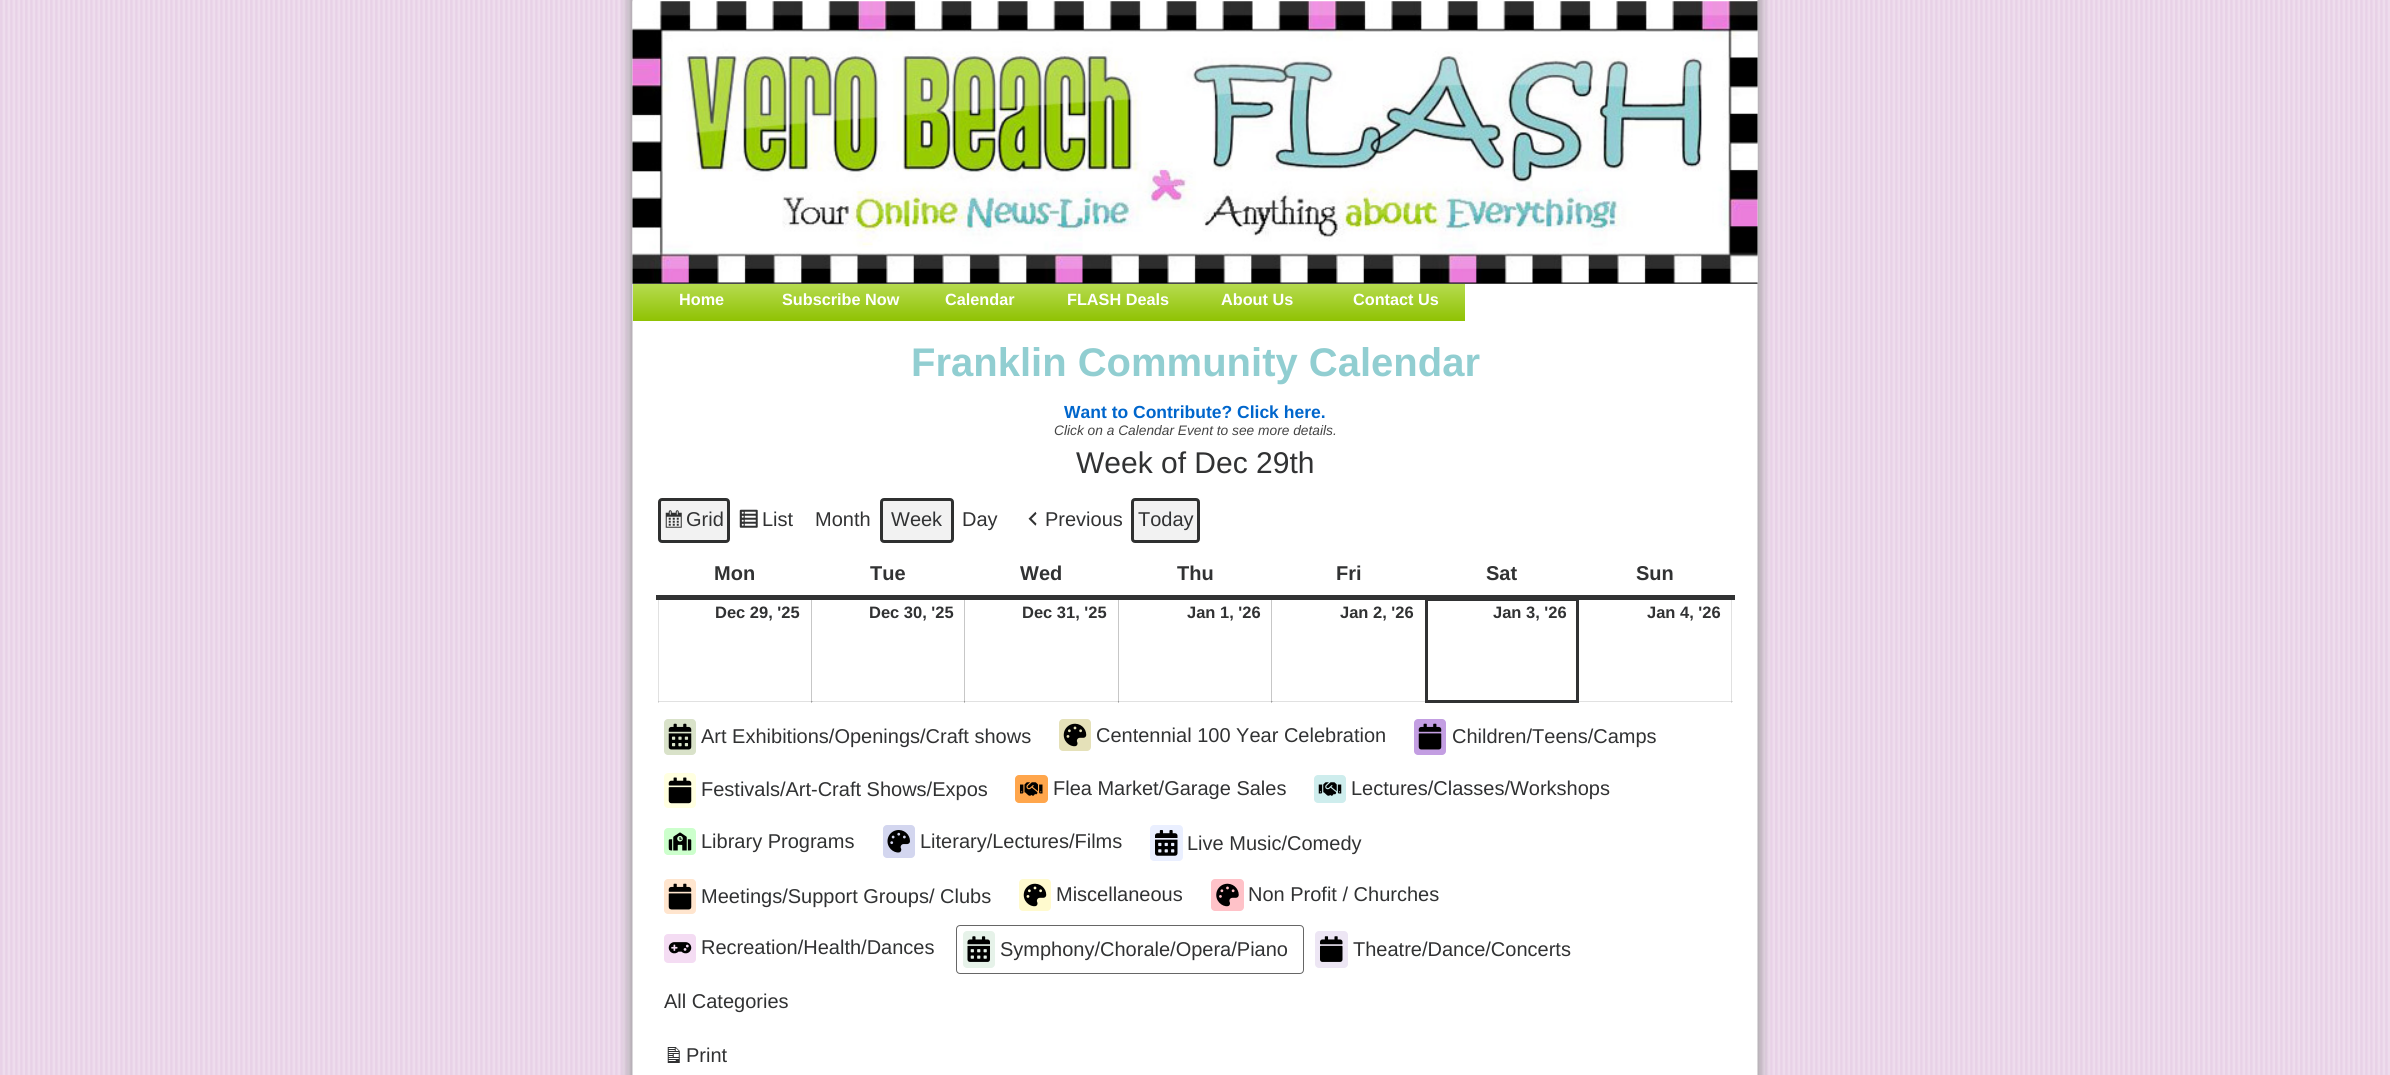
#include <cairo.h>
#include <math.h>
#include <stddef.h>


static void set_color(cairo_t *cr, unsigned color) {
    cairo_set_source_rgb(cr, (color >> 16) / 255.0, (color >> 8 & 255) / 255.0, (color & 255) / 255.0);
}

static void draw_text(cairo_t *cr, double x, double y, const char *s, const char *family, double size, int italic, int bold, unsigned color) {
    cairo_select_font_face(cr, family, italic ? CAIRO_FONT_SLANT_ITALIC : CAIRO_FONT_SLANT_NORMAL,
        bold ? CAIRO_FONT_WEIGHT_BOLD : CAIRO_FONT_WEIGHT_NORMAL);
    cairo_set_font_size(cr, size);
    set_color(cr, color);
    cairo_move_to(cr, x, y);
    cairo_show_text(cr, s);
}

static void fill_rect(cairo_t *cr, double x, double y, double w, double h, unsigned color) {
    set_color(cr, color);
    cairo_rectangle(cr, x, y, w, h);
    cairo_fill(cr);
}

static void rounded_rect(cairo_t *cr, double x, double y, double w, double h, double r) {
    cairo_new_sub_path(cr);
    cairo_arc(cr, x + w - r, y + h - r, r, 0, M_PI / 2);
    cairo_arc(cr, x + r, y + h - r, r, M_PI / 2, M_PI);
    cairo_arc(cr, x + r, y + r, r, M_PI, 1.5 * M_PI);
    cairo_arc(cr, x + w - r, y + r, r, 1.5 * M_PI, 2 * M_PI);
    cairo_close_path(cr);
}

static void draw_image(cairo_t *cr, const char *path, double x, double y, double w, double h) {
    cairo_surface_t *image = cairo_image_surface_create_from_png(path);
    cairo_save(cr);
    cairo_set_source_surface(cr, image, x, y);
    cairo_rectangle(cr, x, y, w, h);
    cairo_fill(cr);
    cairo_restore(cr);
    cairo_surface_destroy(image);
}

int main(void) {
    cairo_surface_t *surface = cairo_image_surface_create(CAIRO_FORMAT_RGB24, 2390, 1075);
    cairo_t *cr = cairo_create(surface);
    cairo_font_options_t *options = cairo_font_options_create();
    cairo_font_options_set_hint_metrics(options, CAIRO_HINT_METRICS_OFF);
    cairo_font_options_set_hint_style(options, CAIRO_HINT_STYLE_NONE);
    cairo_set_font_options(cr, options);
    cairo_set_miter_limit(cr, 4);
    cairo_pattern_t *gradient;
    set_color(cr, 0xFFFFFF);
    cairo_paint(cr);
    draw_image(cr, "assets/img1.png", 0, 0, 2390, 1075);
    draw_image(cr, "assets/img2.png", 621, 0, 1149, 1075);
    draw_image(cr, "assets/img3.png", 632, 1, 1126, 283);
    gradient = cairo_pattern_create_linear(633, 284, 633, 321);
    cairo_pattern_add_color_stop_rgba(gradient, 0, 0.714, 0.859, 0.31, 1);
    cairo_pattern_add_color_stop_rgba(gradient, 1, 0.561, 0.761, 0.012, 1);
    cairo_set_source(cr, gradient);
    cairo_pattern_destroy(gradient);
    cairo_rectangle(cr, 633, 284, 138, 37);
    cairo_fill(cr);
    draw_text(cr, 679, 305, "Home", "Liberation Sans", 16.25, 0, 1, 0xFFFFFF);
    gradient = cairo_pattern_create_linear(771, 284, 771, 321);
    cairo_pattern_add_color_stop_rgba(gradient, 0, 0.714, 0.859, 0.31, 1);
    cairo_pattern_add_color_stop_rgba(gradient, 1, 0.561, 0.761, 0.012, 1);
    cairo_set_source(cr, gradient);
    cairo_pattern_destroy(gradient);
    cairo_rectangle(cr, 771, 284, 139, 37);
    cairo_fill(cr);
    draw_text(cr, 782, 305, "Subscribe Now", "Liberation Sans", 16.25, 0, 1, 0xFFFFFF);
    gradient = cairo_pattern_create_linear(910, 284, 910, 321);
    cairo_pattern_add_color_stop_rgba(gradient, 0, 0.714, 0.859, 0.31, 1);
    cairo_pattern_add_color_stop_rgba(gradient, 1, 0.561, 0.761, 0.012, 1);
    cairo_set_source(cr, gradient);
    cairo_pattern_destroy(gradient);
    cairo_rectangle(cr, 910, 284, 139, 37);
    cairo_fill(cr);
    draw_text(cr, 945, 305, "Calendar", "Liberation Sans", 16.25, 0, 1, 0xFFFFFF);
    gradient = cairo_pattern_create_linear(1049, 284, 1049, 321);
    cairo_pattern_add_color_stop_rgba(gradient, 0, 0.714, 0.859, 0.31, 1);
    cairo_pattern_add_color_stop_rgba(gradient, 1, 0.561, 0.761, 0.012, 1);
    cairo_set_source(cr, gradient);
    cairo_pattern_destroy(gradient);
    cairo_rectangle(cr, 1049, 284, 139, 37);
    cairo_fill(cr);
    draw_text(cr, 1067, 305, "FLASH Deals", "Liberation Sans", 16.25, 0, 1, 0xFFFFFF);
    gradient = cairo_pattern_create_linear(1188, 284, 1188, 321);
    cairo_pattern_add_color_stop_rgba(gradient, 0, 0.714, 0.859, 0.31, 1);
    cairo_pattern_add_color_stop_rgba(gradient, 1, 0.561, 0.761, 0.012, 1);
    cairo_set_source(cr, gradient);
    cairo_pattern_destroy(gradient);
    cairo_rectangle(cr, 1188, 284, 138, 37);
    cairo_fill(cr);
    draw_text(cr, 1221, 305, "About Us", "Liberation Sans", 16.25, 0, 1, 0xFFFFFF);
    gradient = cairo_pattern_create_linear(1326, 284, 1326, 321);
    cairo_pattern_add_color_stop_rgba(gradient, 0, 0.714, 0.859, 0.31, 1);
    cairo_pattern_add_color_stop_rgba(gradient, 1, 0.561, 0.761, 0.012, 1);
    cairo_set_source(cr, gradient);
    cairo_pattern_destroy(gradient);
    cairo_rectangle(cr, 1326, 284, 139, 37);
    cairo_fill(cr);
    draw_text(cr, 1353, 305, "Contact Us", "Liberation Sans", 16.25, 0, 1, 0xFFFFFF);
    draw_text(cr, 911, 376, "Franklin Community Calendar", "Liberation Sans", 40, 0, 1, 0x91CED1);
    draw_text(cr, 1064, 418, "Want to Contribute? Click here.", "Liberation Sans", 17.5, 0, 1, 0x0066CC);
    draw_text(cr, 1054, 435, "Click on a Calendar Event to see more details.", "Liberation Sans", 13.75, 1, 0, 0x444444);
    draw_text(cr, 1076, 473, "Week of Dec 29th", "Liberation Sans", 30, 0, 0, 0x313233);
    set_color(cr, 0xF2F2F2);
    rounded_rect(cr, 658, 498, 72, 45, 4);
    cairo_fill(cr);
    draw_image(cr, "assets/img4.png", 665, 510, 17, 18);
    rounded_rect(cr, 659.5, 499.5, 69, 42, 2.5);
    set_color(cr, 0x2F3030);
    cairo_set_line_width(cr, 3);
    cairo_stroke(cr);
    draw_text(cr, 686, 526, "Grid", "Liberation Sans", 20, 0, 0, 0x313233);
    draw_image(cr, "assets/img5.png", 739, 509, 19, 19);
    draw_text(cr, 762, 526, "List", "Liberation Sans", 20, 0, 0, 0x313233);
    draw_text(cr, 815, 526, "Month", "Liberation Sans", 20, 0, 0, 0x313233);
    set_color(cr, 0xF2F2F2);
    rounded_rect(cr, 880, 498, 74, 45, 4);
    cairo_fill(cr);
    rounded_rect(cr, 881.5, 499.5, 71, 42, 2.5);
    set_color(cr, 0x2F3030);
    cairo_stroke(cr);
    draw_text(cr, 891, 526, "Week", "Liberation Sans", 20, 0, 0, 0x313233);
    draw_text(cr, 962, 526, "Day", "Liberation Sans", 20, 0, 0, 0x313233);
    draw_image(cr, "assets/img6.png", 1028, 511, 9, 15);
    draw_text(cr, 1045, 526, "Previous", "Liberation Sans", 20, 0, 0, 0x313233);
    set_color(cr, 0xF2F2F2);
    rounded_rect(cr, 1131, 498, 69, 45, 4);
    cairo_fill(cr);
    rounded_rect(cr, 1132.5, 499.5, 66, 42, 2.5);
    set_color(cr, 0x2F3030);
    cairo_stroke(cr);
    draw_text(cr, 1138, 526, "Today", "Liberation Sans", 20, 0, 0, 0x313233);
    cairo_set_source_rgba(cr, 0, 0, 0, 0.12);
    cairo_rectangle(cr, 1271, 701, 155, 1);
    cairo_fill(cr);
    cairo_rectangle(cr, 1271, 596, 1, 107);
    cairo_fill(cr);
    cairo_rectangle(cr, 1271, 596, 1, 107);
    cairo_fill(cr);
    cairo_rectangle(cr, 1118, 701, 155, 1);
    cairo_fill(cr);
    cairo_rectangle(cr, 1118, 596, 1, 107);
    cairo_fill(cr);
    cairo_rectangle(cr, 1118, 596, 1, 107);
    cairo_fill(cr);
    cairo_rectangle(cr, 964, 701, 155, 1);
    cairo_fill(cr);
    cairo_rectangle(cr, 964, 596, 1, 107);
    cairo_fill(cr);
    cairo_rectangle(cr, 964, 596, 1, 107);
    cairo_fill(cr);
    cairo_rectangle(cr, 811, 701, 154, 1);
    cairo_fill(cr);
    cairo_rectangle(cr, 811, 596, 1, 107);
    cairo_fill(cr);
    cairo_rectangle(cr, 811, 596, 1, 107);
    cairo_fill(cr);
    cairo_rectangle(cr, 658, 701, 155, 1);
    cairo_fill(cr);
    cairo_rectangle(cr, 658, 596, 1, 107);
    cairo_fill(cr);
    cairo_rectangle(cr, 1731, 596, 1, 107);
    cairo_fill(cr);
    fill_rect(cr, 656, 595, 1079, 5, 0x313233);
    draw_text(cr, 714, 580, "Mon", "Liberation Sans", 20, 0, 1, 0x313233);
    draw_text(cr, 870, 580, "Tue", "Liberation Sans", 20, 0, 1, 0x313233);
    draw_text(cr, 1020, 580, "Wed", "Liberation Sans", 20, 0, 1, 0x313233);
    draw_text(cr, 1177, 580, "Thu", "Liberation Sans", 20, 0, 1, 0x313233);
    draw_text(cr, 1336, 580, "Fri", "Liberation Sans", 20, 0, 1, 0x313233);
    draw_text(cr, 1486, 580, "Sat", "Liberation Sans", 20, 0, 1, 0x313233);
    draw_text(cr, 1636, 580, "Sun", "Liberation Sans", 20, 0, 1, 0x313233);
    draw_text(cr, 715, 618, "Dec 29, '25", "Liberation Sans", 16.5, 0, 1, 0x313233);
    draw_text(cr, 869, 618, "Dec 30, '25", "Liberation Sans", 16.5, 0, 1, 0x313233);
    draw_text(cr, 1022, 618, "Dec 31, '25", "Liberation Sans", 16.5, 0, 1, 0x313233);
    draw_text(cr, 1187, 618, "Jan 1, '26", "Liberation Sans", 16.5, 0, 1, 0x313233);
    draw_text(cr, 1340, 618, "Jan 2, '26", "Liberation Sans", 16.5, 0, 1, 0x313233);
    cairo_set_source_rgba(cr, 0, 0, 0, 0.12);
    cairo_rectangle(cr, 1578, 701, 155, 1);
    cairo_fill(cr);
    cairo_rectangle(cr, 1426.5, 599.5, 151, 102);
    set_color(cr, 0x313233);
    cairo_stroke(cr);
    draw_text(cr, 1493, 618, "Jan 3, '26", "Liberation Sans", 16.5, 0, 1, 0x313233);
    draw_text(cr, 1647, 618, "Jan 4, '26", "Liberation Sans", 16.5, 0, 1, 0x313233);
    set_color(cr, 0xD9E2C9);
    rounded_rect(cr, 664, 719, 32, 36, 4);
    cairo_fill(cr);
    draw_image(cr, "assets/img7.png", 668, 723, 24, 27);
    draw_text(cr, 701, 743, "Art Exhibitions/Openings/Craft shows", "Liberation Sans", 20, 0, 0, 0x313233);
    set_color(cr, 0xE5E1B9);
    rounded_rect(cr, 1059, 719, 32, 32, 4);
    cairo_fill(cr);
    draw_image(cr, "assets/img8.png", 1063, 723, 24, 24);
    draw_text(cr, 1096, 742, "Centennial 100 Year Celebration", "Liberation Sans", 20, 0, 0, 0x313233);
    set_color(cr, 0xC39EE2);
    rounded_rect(cr, 1414, 719, 32, 36, 4);
    cairo_fill(cr);
    draw_image(cr, "assets/img9.png", 1418, 723, 24, 27);
    draw_text(cr, 1452, 743, "Children/Teens/Camps", "Liberation Sans", 20, 0, 0, 0x313233);
    set_color(cr, 0xFFFFE0);
    rounded_rect(cr, 664, 773, 32, 35, 4);
    cairo_fill(cr);
    draw_image(cr, "assets/img10.png", 668, 777, 24, 27);
    draw_text(cr, 701, 796, "Festivals/Art-Craft Shows/Expos", "Liberation Sans", 20, 0, 0, 0x313233);
    set_color(cr, 0xFFA64C);
    rounded_rect(cr, 1015, 775, 33, 28, 4);
    cairo_fill(cr);
    draw_image(cr, "assets/img11.png", 1020, 782, 23, 14);
    draw_text(cr, 1053, 795, "Flea Market/Garage Sales", "Liberation Sans", 20, 0, 0, 0x313233);
    set_color(cr, 0xCEEDED);
    rounded_rect(cr, 1314, 775, 32, 28, 4);
    cairo_fill(cr);
    draw_image(cr, "assets/img12.png", 1318, 782, 24, 14);
    draw_text(cr, 1351, 795, "Lectures/Classes/Workshops", "Liberation Sans", 20, 0, 0, 0x313233);
    set_color(cr, 0xCCFFCC);
    rounded_rect(cr, 664, 828, 32, 27, 4);
    cairo_fill(cr);
    draw_image(cr, "assets/img13.png", 668, 832, 24, 19);
    draw_text(cr, 701, 848, "Library Programs", "Liberation Sans", 20, 0, 0, 0x313233);
    set_color(cr, 0xD3D6EF);
    rounded_rect(cr, 883, 825, 32, 33, 4);
    cairo_fill(cr);
    draw_image(cr, "assets/img14.png", 887, 830, 23, 23);
    draw_text(cr, 920, 848, "Literary/Lectures/Films", "Liberation Sans", 20, 0, 0, 0x313233);
    set_color(cr, 0xEAEFFF);
    rounded_rect(cr, 1150, 825, 33, 36, 4);
    cairo_fill(cr);
    draw_image(cr, "assets/img15.png", 1155, 830, 23, 26);
    draw_text(cr, 1187, 850, "Live Music/Comedy", "Liberation Sans", 20, 0, 0, 0x313233);
    set_color(cr, 0xFFE5CE);
    rounded_rect(cr, 664, 879, 32, 35, 4);
    cairo_fill(cr);
    draw_image(cr, "assets/img16.png", 668, 883, 24, 27);
    draw_text(cr, 701, 903, "Meetings/Support Groups/ Clubs", "Liberation Sans", 20, 0, 0, 0x313233);
    set_color(cr, 0xFFFACE);
    rounded_rect(cr, 1019, 879, 32, 32, 4);
    cairo_fill(cr);
    draw_image(cr, "assets/img17.png", 1023, 883, 24, 24);
    draw_text(cr, 1056, 901, "Miscellaneous", "Liberation Sans", 20, 0, 0, 0x313233);
    set_color(cr, 0xFFC2C8);
    rounded_rect(cr, 1211, 879, 33, 32, 4);
    cairo_fill(cr);
    draw_image(cr, "assets/img18.png", 1216, 883, 23, 24);
    draw_text(cr, 1248, 901, "Non Profit / Churches", "Liberation Sans", 20, 0, 0, 0x313233);
    set_color(cr, 0xF4DCF3);
    rounded_rect(cr, 664, 934, 32, 29, 4);
    cairo_fill(cr);
    draw_image(cr, "assets/img19.png", 668, 942, 24, 12);
    draw_text(cr, 701, 954, "Recreation/Health/Dances", "Liberation Sans", 20, 0, 0, 0x313233);
    rounded_rect(cr, 956.5, 925.5, 347, 48, 3.5);
    set_color(cr, 0x666666);
    cairo_set_line_width(cr, 1);
    cairo_stroke(cr);
    set_color(cr, 0xE6F2E9);
    rounded_rect(cr, 963, 931, 32, 37, 4);
    cairo_fill(cr);
    draw_image(cr, "assets/img20.png", 967, 936, 23, 26);
    draw_text(cr, 1000, 956, "Symphony/Chorale/Opera/Piano", "Liberation Sans", 20, 0, 0, 0x313233);
    set_color(cr, 0xEDE6F4);
    rounded_rect(cr, 1315, 931, 33, 37, 4);
    cairo_fill(cr);
    draw_image(cr, "assets/img21.png", 1320, 936, 23, 26);
    draw_text(cr, 1353, 956, "Theatre/Dance/Concerts", "Liberation Sans", 20, 0, 0, 0x313233);
    draw_text(cr, 664, 1008, "All Categories", "Liberation Sans", 20, 0, 0, 0x313233);
    draw_image(cr, "assets/img22.png", 667, 1047, 13, 16);
    draw_text(cr, 686, 1062, "Print", "Liberation Sans", 20, 0, 0, 0x313233);
    cairo_surface_write_to_png(surface, "output.png");
    cairo_font_options_destroy(options);
    cairo_destroy(cr);
    cairo_surface_destroy(surface);
    return 0;
}
